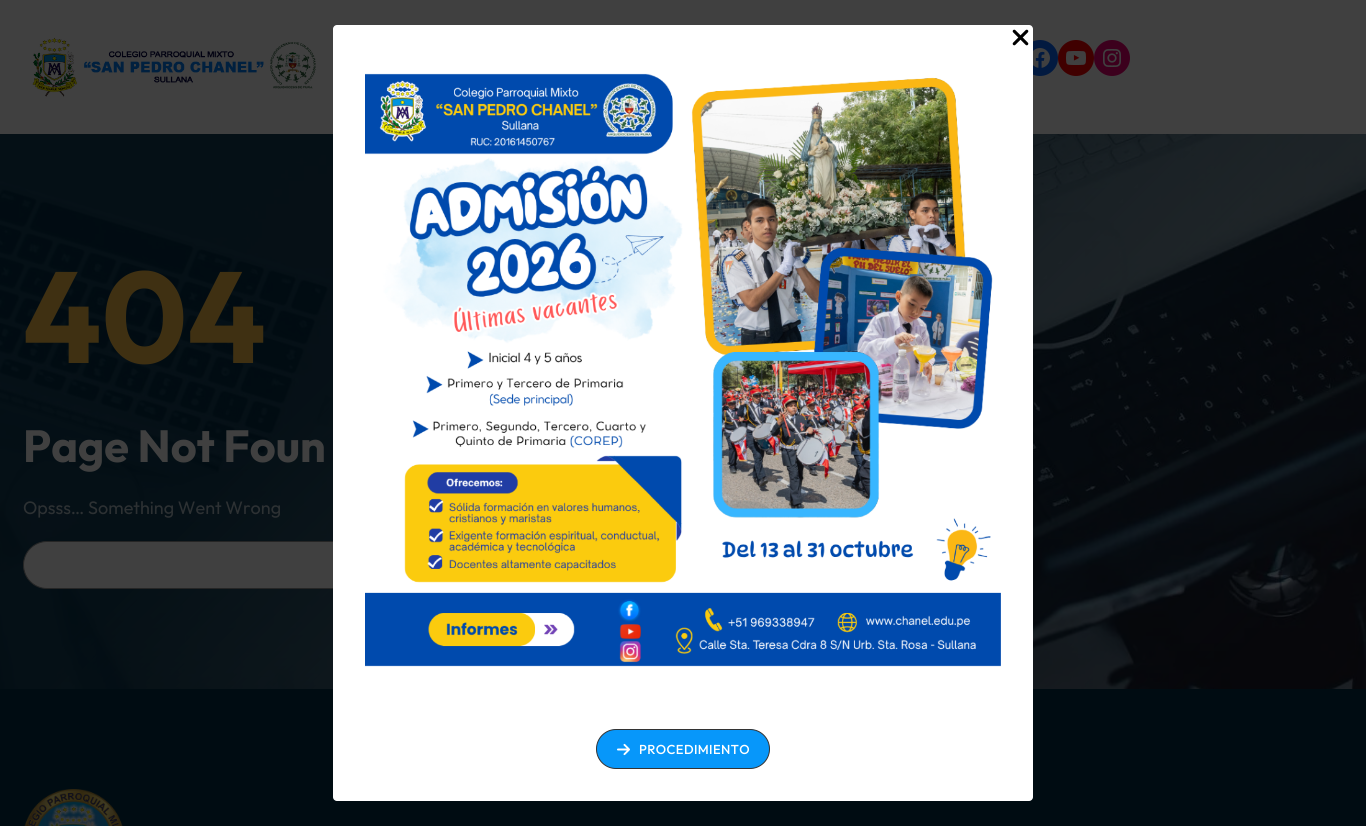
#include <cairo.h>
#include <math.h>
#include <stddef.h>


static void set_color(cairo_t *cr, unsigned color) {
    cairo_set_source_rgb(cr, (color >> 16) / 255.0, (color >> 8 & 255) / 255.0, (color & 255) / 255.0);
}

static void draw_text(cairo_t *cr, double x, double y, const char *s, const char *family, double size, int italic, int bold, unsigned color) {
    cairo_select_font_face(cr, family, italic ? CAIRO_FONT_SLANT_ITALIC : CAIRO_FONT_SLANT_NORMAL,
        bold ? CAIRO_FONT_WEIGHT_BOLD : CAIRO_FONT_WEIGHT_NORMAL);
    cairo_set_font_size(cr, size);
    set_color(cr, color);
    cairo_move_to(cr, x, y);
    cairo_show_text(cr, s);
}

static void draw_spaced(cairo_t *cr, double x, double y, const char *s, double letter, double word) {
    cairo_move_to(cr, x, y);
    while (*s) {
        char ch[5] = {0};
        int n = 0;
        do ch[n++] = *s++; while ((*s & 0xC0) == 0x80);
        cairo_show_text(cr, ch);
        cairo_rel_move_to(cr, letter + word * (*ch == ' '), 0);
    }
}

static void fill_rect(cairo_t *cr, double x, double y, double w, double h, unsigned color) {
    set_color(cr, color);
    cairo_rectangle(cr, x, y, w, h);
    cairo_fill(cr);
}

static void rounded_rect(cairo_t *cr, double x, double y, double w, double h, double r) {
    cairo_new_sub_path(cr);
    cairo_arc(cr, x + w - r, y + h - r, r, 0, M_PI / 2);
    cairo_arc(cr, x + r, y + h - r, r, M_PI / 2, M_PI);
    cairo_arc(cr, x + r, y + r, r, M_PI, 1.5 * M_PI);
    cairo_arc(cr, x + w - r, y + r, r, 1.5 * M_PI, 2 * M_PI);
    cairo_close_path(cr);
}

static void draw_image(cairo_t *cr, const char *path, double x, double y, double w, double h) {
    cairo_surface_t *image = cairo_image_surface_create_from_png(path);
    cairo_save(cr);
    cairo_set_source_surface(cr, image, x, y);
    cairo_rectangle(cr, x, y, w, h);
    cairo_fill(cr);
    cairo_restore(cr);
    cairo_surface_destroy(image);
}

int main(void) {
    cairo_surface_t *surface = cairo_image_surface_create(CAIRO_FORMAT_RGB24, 1366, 826);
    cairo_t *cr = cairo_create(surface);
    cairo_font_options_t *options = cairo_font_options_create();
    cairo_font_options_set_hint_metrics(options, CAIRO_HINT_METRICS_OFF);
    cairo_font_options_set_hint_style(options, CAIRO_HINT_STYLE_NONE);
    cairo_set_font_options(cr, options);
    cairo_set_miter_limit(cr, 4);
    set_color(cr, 0x404040);
    cairo_paint(cr);
    draw_image(cr, "assets/img1.png", 32, 37, 284, 60);
    set_color(cr, 0x021A40);
    cairo_arc(cr, 1040, 58, 18, 0, 2 * M_PI);
    cairo_fill(cr);
    draw_image(cr, "assets/img2.png", 1033, 48, 17, 20);
    set_color(cr, 0x400000);
    cairo_arc(cr, 1076, 58, 18, 0, 2 * M_PI);
    cairo_fill(cr);
    draw_image(cr, "assets/img3.png", 1066, 51, 20, 14);
    set_color(cr, 0x3C001D);
    cairo_arc(cr, 1112, 58, 18, 0, 2 * M_PI);
    cairo_fill(cr);
    draw_image(cr, "assets/img4.png", 1103, 49, 18, 18);
    draw_image(cr, "assets/img5.png", 0, 134, 1366, 555);
    draw_text(cr, 23, 363, "404", "Outfit", 129, 0, 1, 0x3F3012);
    draw_text(cr, 23, 462, "Page Not Foun", "Outfit", 45, 0, 1, 0x404040);
    draw_text(cr, 23, 514, "Opsss… Something Went Wrong", "Outfit", 18, 0, 0, 0x2D3133);
    set_color(cr, 0x404040);
    rounded_rect(cr, 23.5, 541.5, 713, 47, 23.5);
    cairo_fill_preserve(cr);
    set_color(cr, 0x252525);
    cairo_set_line_width(cr, 1);
    cairo_stroke(cr);
    fill_rect(cr, 0, 689, 1366, 137, 0x000C12);
    draw_image(cr, "assets/img6.png", 24, 789, 99, 37);
    set_color(cr, 0xFFFFFF);
    rounded_rect(cr, 333, 25, 700, 776, 4);
    cairo_fill(cr);
    draw_image(cr, "assets/img7.png", 1012, 29, 17, 17);
    draw_image(cr, "assets/img8.png", 365, 73, 636, 594);
    set_color(cr, 0x0797FA);
    rounded_rect(cr, 596.5, 729.5, 173, 39, 19.5);
    cairo_fill_preserve(cr);
    set_color(cr, 0x333333);
    cairo_stroke(cr);
    draw_image(cr, "assets/img9.png", 617, 743, 13, 13);
    cairo_select_font_face(cr, "Outfit Medium", CAIRO_FONT_SLANT_NORMAL, CAIRO_FONT_WEIGHT_NORMAL);
    cairo_set_font_size(cr, 13);
    set_color(cr, 0xFFFFFF);
    draw_spaced(cr, 639, 754, "PROCEDIMIENTO", 0.4, 0);
    cairo_surface_write_to_png(surface, "output.png");
    cairo_font_options_destroy(options);
    cairo_destroy(cr);
    cairo_surface_destroy(surface);
    return 0;
}
